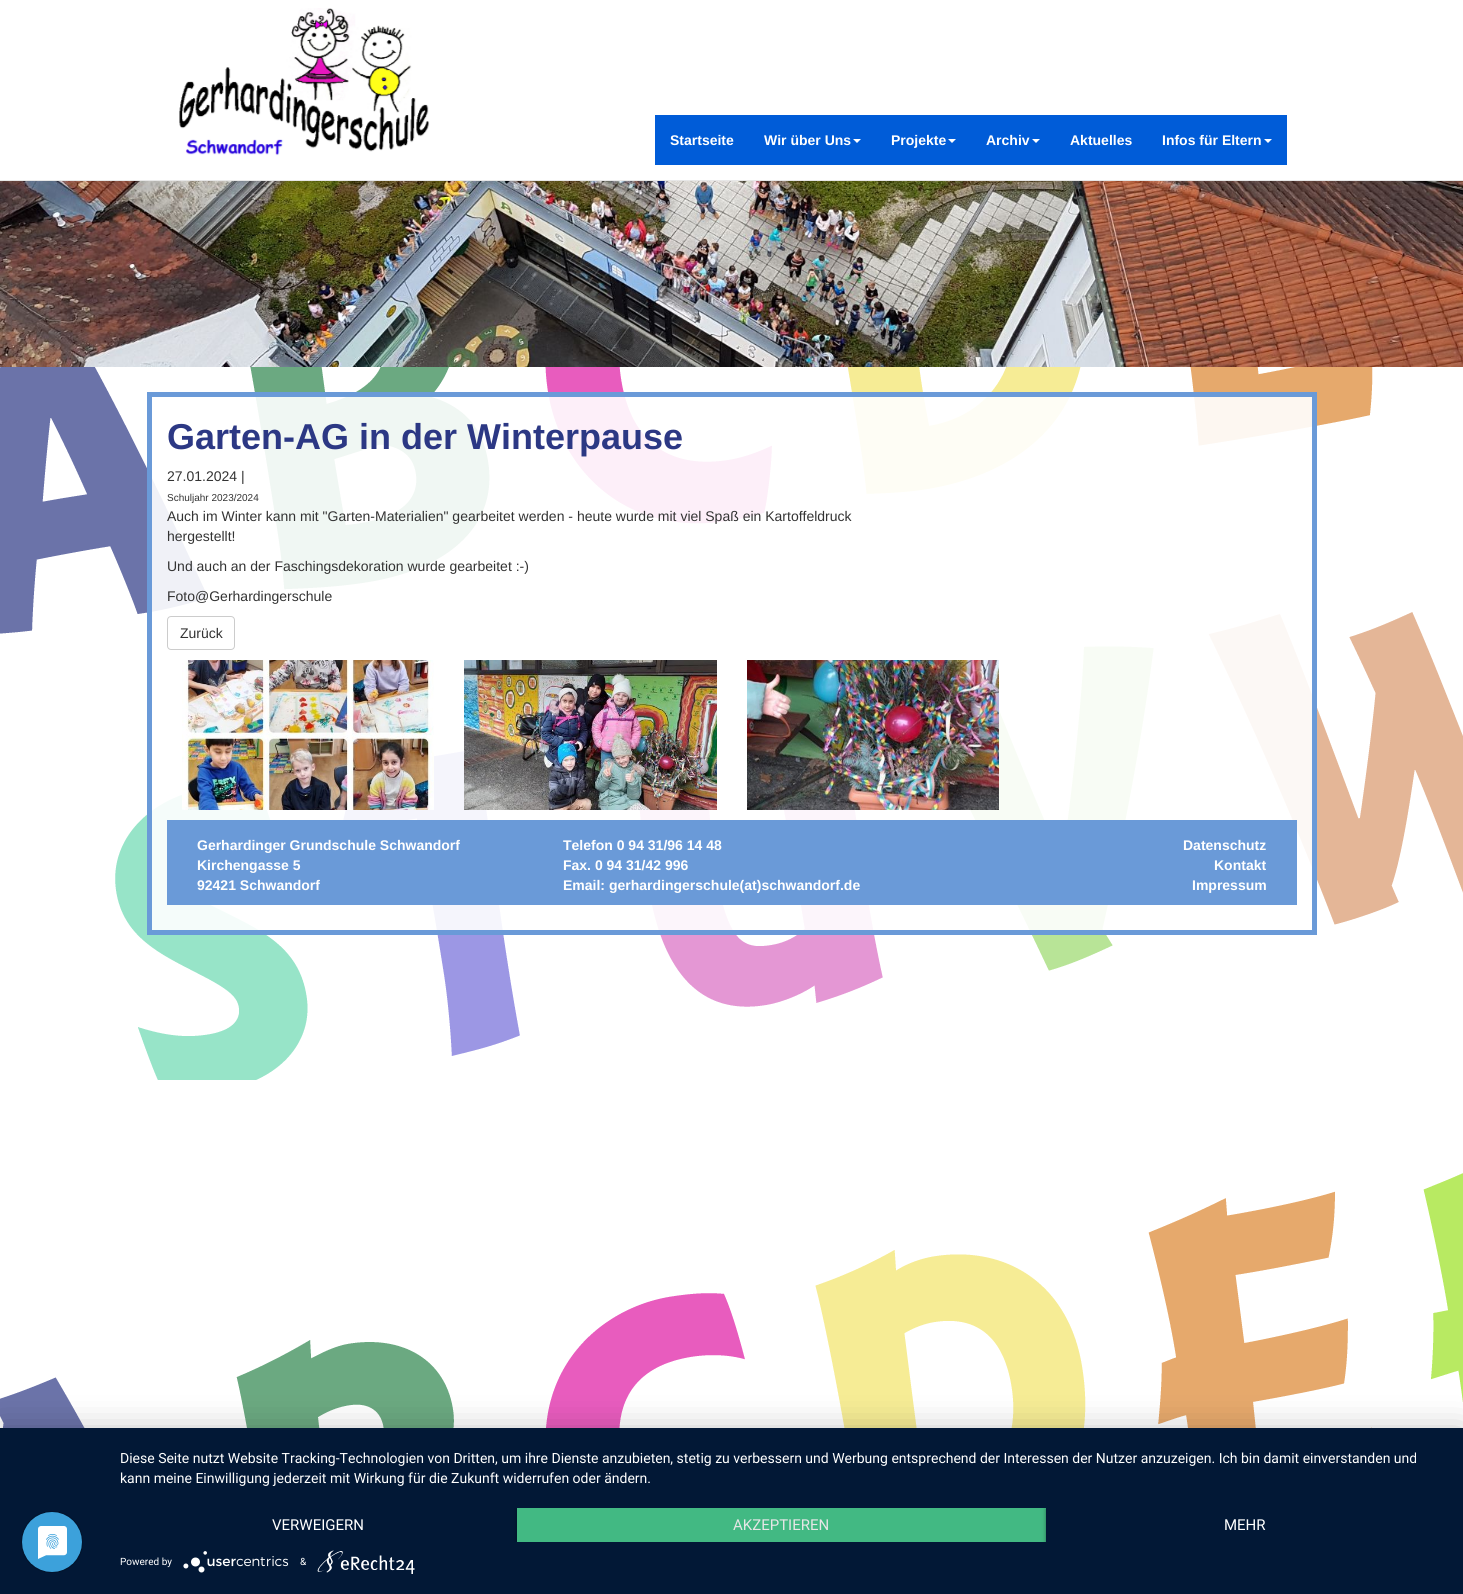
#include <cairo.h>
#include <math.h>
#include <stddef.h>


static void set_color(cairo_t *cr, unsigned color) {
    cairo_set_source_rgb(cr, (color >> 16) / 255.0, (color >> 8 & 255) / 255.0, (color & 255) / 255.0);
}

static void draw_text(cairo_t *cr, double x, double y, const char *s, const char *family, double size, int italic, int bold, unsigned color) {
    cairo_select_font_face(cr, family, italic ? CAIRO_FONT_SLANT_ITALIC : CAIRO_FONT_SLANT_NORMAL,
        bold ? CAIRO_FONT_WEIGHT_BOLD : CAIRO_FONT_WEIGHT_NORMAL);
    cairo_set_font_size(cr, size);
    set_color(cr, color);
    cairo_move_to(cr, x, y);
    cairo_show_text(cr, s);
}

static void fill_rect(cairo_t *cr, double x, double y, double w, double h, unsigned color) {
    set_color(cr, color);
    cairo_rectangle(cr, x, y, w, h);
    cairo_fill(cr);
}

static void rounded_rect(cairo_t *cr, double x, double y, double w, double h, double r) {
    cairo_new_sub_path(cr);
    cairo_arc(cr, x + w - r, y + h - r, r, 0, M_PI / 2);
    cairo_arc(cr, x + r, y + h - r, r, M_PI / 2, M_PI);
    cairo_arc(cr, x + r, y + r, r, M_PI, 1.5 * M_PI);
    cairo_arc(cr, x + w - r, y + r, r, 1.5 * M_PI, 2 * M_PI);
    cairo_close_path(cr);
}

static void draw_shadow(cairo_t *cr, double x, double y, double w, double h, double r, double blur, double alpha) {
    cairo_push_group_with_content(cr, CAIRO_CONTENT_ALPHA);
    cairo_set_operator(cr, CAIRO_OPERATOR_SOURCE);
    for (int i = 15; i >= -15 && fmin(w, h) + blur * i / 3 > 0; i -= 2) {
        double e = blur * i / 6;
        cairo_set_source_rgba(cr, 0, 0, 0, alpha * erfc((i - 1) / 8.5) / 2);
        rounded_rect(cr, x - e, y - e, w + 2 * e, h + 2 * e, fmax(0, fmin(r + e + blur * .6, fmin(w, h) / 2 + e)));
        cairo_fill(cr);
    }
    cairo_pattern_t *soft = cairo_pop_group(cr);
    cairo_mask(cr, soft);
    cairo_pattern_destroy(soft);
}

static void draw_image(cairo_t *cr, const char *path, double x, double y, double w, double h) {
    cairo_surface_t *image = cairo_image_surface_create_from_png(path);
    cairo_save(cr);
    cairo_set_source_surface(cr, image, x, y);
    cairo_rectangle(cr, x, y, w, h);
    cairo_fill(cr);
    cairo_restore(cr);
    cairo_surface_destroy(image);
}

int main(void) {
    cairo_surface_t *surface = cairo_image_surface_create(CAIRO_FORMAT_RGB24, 1463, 1594);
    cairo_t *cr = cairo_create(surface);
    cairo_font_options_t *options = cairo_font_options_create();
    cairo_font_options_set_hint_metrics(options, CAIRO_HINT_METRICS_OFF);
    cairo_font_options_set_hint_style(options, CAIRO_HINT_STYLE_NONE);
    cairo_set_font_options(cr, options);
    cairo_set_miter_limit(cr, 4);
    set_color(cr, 0xFFFFFF);
    cairo_paint(cr);
    draw_image(cr, "assets/img1.png", 0, 367, 1463, 1061);
    fill_rect(cr, 0, 180, 1463, 1, 0xE7E7E7);
    draw_image(cr, "assets/img2.png", 179, 8, 251, 148);
    fill_rect(cr, 655, 115, 632, 50, 0x005CD8);
    draw_text(cr, 670, 145, "Startseite", "Liberation Sans", 14, 0, 1, 0xFFFFFF);
    draw_text(cr, 764, 145, "Wir über Uns", "Liberation Sans", 14, 0, 1, 0xFFFFFF);
    cairo_new_path(cr);
    cairo_move_to(cr, 853, 139);
    cairo_line_to(cr, 861, 139);
    cairo_line_to(cr, 857, 143);
    cairo_close_path(cr);
    cairo_fill(cr);
    draw_text(cr, 891, 145, "Projekte", "Liberation Sans", 14, 0, 1, 0xFFFFFF);
    cairo_new_path(cr);
    cairo_move_to(cr, 948, 139);
    cairo_line_to(cr, 956, 139);
    cairo_line_to(cr, 952, 143);
    cairo_close_path(cr);
    cairo_fill(cr);
    draw_text(cr, 986, 145, "Archiv", "Liberation Sans", 14, 0, 1, 0xFFFFFF);
    cairo_new_path(cr);
    cairo_move_to(cr, 1032, 139);
    cairo_line_to(cr, 1040, 139);
    cairo_line_to(cr, 1036, 143);
    cairo_close_path(cr);
    cairo_fill(cr);
    draw_text(cr, 1070, 145, "Aktuelles", "Liberation Sans", 14, 0, 1, 0xFFFFFF);
    draw_text(cr, 1162, 145, "Infos für Eltern", "Liberation Sans", 14, 0, 1, 0xFFFFFF);
    cairo_new_path(cr);
    cairo_move_to(cr, 1264, 139);
    cairo_line_to(cr, 1272, 139);
    cairo_line_to(cr, 1268, 143);
    cairo_close_path(cr);
    cairo_fill(cr);
    draw_image(cr, "assets/img3.png", 0, 181, 1463, 186);
    cairo_set_source_rgba(cr, 1, 1, 1, 0.9);
    cairo_rectangle(cr, 149.5, 394.5, 1165, 538);
    cairo_fill_preserve(cr);
    set_color(cr, 0x6A9AD8);
    cairo_set_line_width(cr, 5);
    cairo_stroke(cr);
    draw_text(cr, 167, 449, "Garten-AG in der Winterpause", "Liberation Sans", 36, 0, 1, 0x2C3884);
    draw_text(cr, 167, 481, "27.01.2024 |", "Liberation Sans", 14, 0, 0, 0x333333);
    draw_text(cr, 167, 501, "Schuljahr 2023/2024", "Liberation Sans", 10, 0, 0, 0x333333);
    draw_text(cr, 167, 521, "Auch im Winter kann mit \"Garten-Materialien\" gearbeitet werden - heute wurde mit viel Spaß ein Kartoffeldruck", "Liberation Sans", 14, 0, 0, 0x333333);
    draw_text(cr, 167, 541, "hergestellt!", "Liberation Sans", 14, 0, 0, 0x333333);
    draw_text(cr, 167, 571, "Und auch an der Faschingsdekoration wurde gearbeitet :-)", "Liberation Sans", 14, 0, 0, 0x333333);
    draw_text(cr, 167, 601, "Foto@Gerhardingerschule", "Liberation Sans", 14, 0, 0, 0x333333);
    rounded_rect(cr, 167.5, 616.5, 67, 33, 3.5);
    set_color(cr, 0xCCCCCC);
    cairo_set_line_width(cr, 1);
    cairo_stroke(cr);
    draw_text(cr, 180, 638, "Zurück", "Liberation Sans", 14, 0, 0, 0x333333);
    draw_image(cr, "assets/img4.png", 182, 660, 252, 150);
    draw_image(cr, "assets/img5.png", 464, 660, 253, 150);
    draw_image(cr, "assets/img6.png", 747, 660, 252, 150);
    fill_rect(cr, 167, 820, 1130, 85, 0x6A9AD8);
    draw_text(cr, 197, 850, "Gerhardinger Grundschule Schwandorf", "Liberation Sans", 14, 0, 1, 0xFFFFFF);
    draw_text(cr, 197, 870, "Kirchengasse 5", "Liberation Sans", 14, 0, 1, 0xFFFFFF);
    draw_text(cr, 197, 890, "92421 Schwandorf", "Liberation Sans", 14, 0, 1, 0xFFFFFF);
    draw_text(cr, 563, 850, "Telefon 0 94 31/96 14 48", "Liberation Sans", 14, 0, 1, 0xFFFFFF);
    draw_text(cr, 563, 870, "Fax. 0 94 31/42 996", "Liberation Sans", 14, 0, 1, 0xFFFFFF);
    draw_text(cr, 563, 890, "Email: gerhardingerschule(at)schwandorf.de", "Liberation Sans", 14, 0, 1, 0xFFFFFF);
    draw_text(cr, 1183, 850, "Datenschutz", "Liberation Sans", 14, 0, 1, 0xFFFFFF);
    draw_text(cr, 1214, 870, "Kontakt", "Liberation Sans", 14, 0, 1, 0xFFFFFF);
    draw_text(cr, 1192, 890, "Impressum", "Liberation Sans", 14, 0, 1, 0xFFFFFF);
    set_color(cr, 0x000000);
    draw_shadow(cr, 0, 1434, 1463, 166, 0, 18, 0.3);
    fill_rect(cr, 0, 1428, 1463, 166, 0x021836);
    draw_image(cr, "assets/img7.png", 21, 1511, 62, 62);
    draw_text(cr, 120, 1463, "Diese Seite nutzt Website Tracking-Technologien von Dritten, um ihre Dienste anzubieten, stetig zu verbessern und Werbung entsprechend der Interessen der Nutzer anzuzeigen. Ich bin damit einverstanden und", "Roboto", 14, 0, 0, 0xFFFFFF);
    draw_text(cr, 120, 1483, "kann meine Einwilligung jederzeit mit Wirkung für die Zukunft widerrufen oder ändern.", "Roboto", 14, 0, 0, 0xFFFFFF);
    draw_text(cr, 272, 1530, "VERWEIGERN", "Roboto", 15, 0, 0, 0xFFFFFF);
    cairo_save(cr);
    cairo_rectangle(cr, 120, 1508, 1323, 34);
    cairo_clip(cr);
    set_color(cr, 0x000000);
    draw_shadow(cr, 517, 1509, 529, 34, 0, 2, 0.4);
    cairo_restore(cr);
    fill_rect(cr, 517, 1508, 529, 34, 0x42B983);
    draw_text(cr, 733, 1530, "AKZEPTIEREN", "Roboto", 15, 0, 0, 0xE6E6E6);
    cairo_save(cr);
    cairo_rectangle(cr, 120, 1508, 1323, 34);
    cairo_clip(cr);
    set_color(cr, 0x000000);
    draw_shadow(cr, 1046, 1509, 397, 34, 0, 2, 0.4);
    cairo_restore(cr);
    fill_rect(cr, 1046, 1508, 397, 34, 0x021836);
    draw_text(cr, 1224, 1530, "MEHR", "Roboto", 15, 0, 0, 0xFFFFFF);
    draw_text(cr, 120, 1565, "Powered by", "Roboto", 10, 0, 0, 0xFFFFFF);
    draw_image(cr, "assets/img8.png", 183, 1551, 106, 22);
    draw_text(cr, 300, 1565, "&", "Roboto", 10, 0, 0, 0xFFFFFF);
    draw_image(cr, "assets/img9.png", 317, 1550, 98, 24);
    cairo_surface_write_to_png(surface, "output.png");
    cairo_font_options_destroy(options);
    cairo_destroy(cr);
    cairo_surface_destroy(surface);
    return 0;
}
